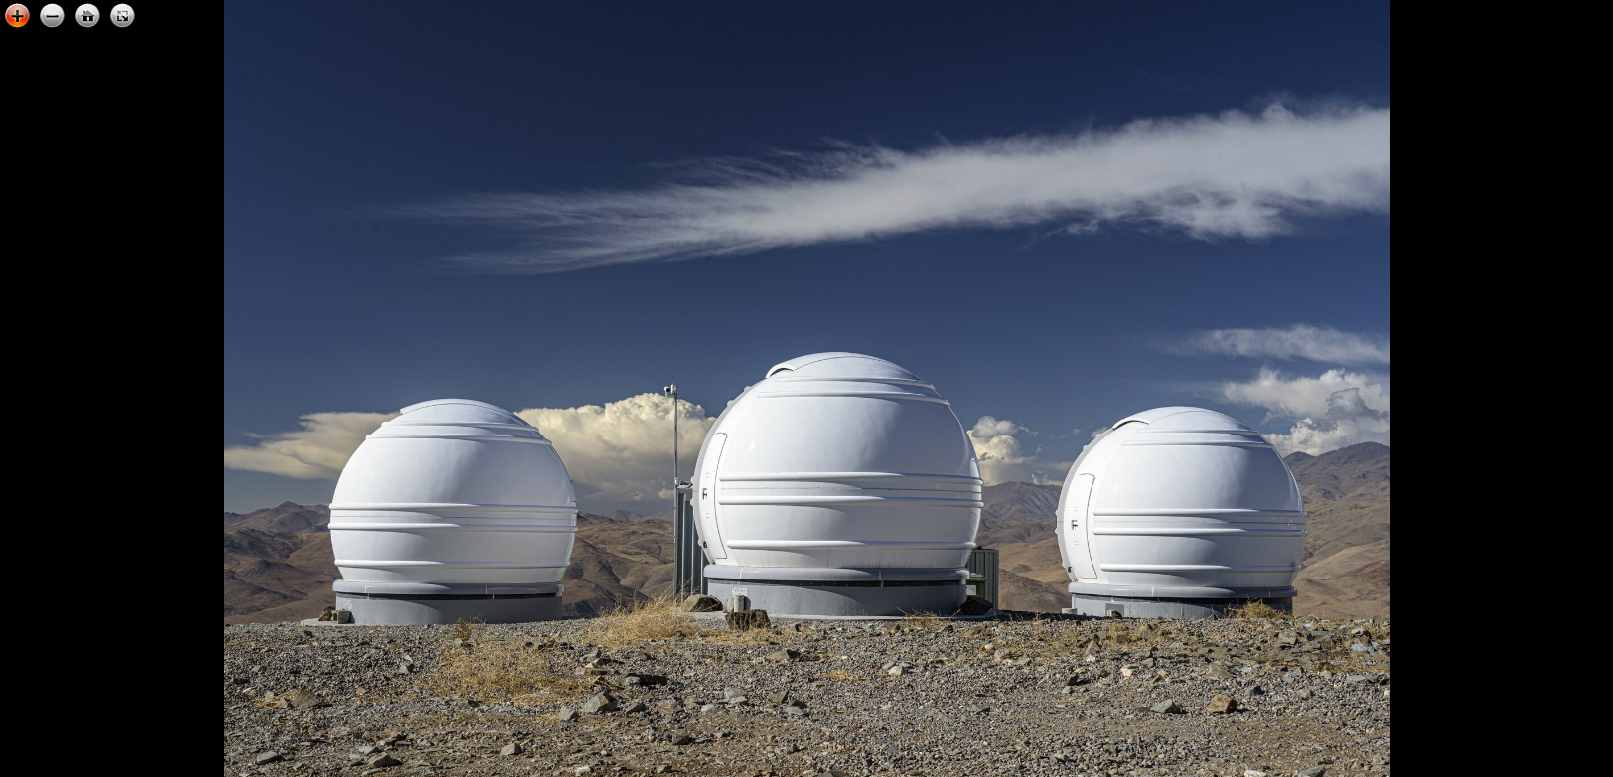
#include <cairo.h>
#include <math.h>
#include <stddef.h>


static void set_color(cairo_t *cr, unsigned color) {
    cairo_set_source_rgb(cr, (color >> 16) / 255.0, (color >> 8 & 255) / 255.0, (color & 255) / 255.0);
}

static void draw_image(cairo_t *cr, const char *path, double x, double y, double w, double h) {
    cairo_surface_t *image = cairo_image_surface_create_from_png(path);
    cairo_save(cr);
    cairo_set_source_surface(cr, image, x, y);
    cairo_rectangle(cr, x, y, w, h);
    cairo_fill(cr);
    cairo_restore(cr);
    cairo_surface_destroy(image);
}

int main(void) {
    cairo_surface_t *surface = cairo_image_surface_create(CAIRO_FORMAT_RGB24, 1613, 777);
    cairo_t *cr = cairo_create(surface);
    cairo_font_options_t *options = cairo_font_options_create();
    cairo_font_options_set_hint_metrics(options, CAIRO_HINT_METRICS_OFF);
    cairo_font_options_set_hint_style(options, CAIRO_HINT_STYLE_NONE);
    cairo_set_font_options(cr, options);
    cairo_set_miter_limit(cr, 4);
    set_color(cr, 0x000000);
    cairo_paint(cr);
    draw_image(cr, "assets/img1.png", 5, 3, 25, 25);
    draw_image(cr, "assets/img2.png", 5, 3, 25, 25);
    draw_image(cr, "assets/img3.png", 5, 3, 25, 25);
    draw_image(cr, "assets/img4.png", 40, 3, 25, 25);
    draw_image(cr, "assets/img5.png", 40, 3, 25, 25);
    draw_image(cr, "assets/img6.png", 75, 3, 25, 25);
    draw_image(cr, "assets/img7.png", 75, 3, 25, 25);
    draw_image(cr, "assets/img8.png", 110, 3, 25, 25);
    draw_image(cr, "assets/img9.png", 110, 3, 25, 25);
    draw_image(cr, "assets/img10.png", 224, 0, 1166, 777);
    cairo_surface_write_to_png(surface, "output.png");
    cairo_font_options_destroy(options);
    cairo_destroy(cr);
    cairo_surface_destroy(surface);
    return 0;
}
